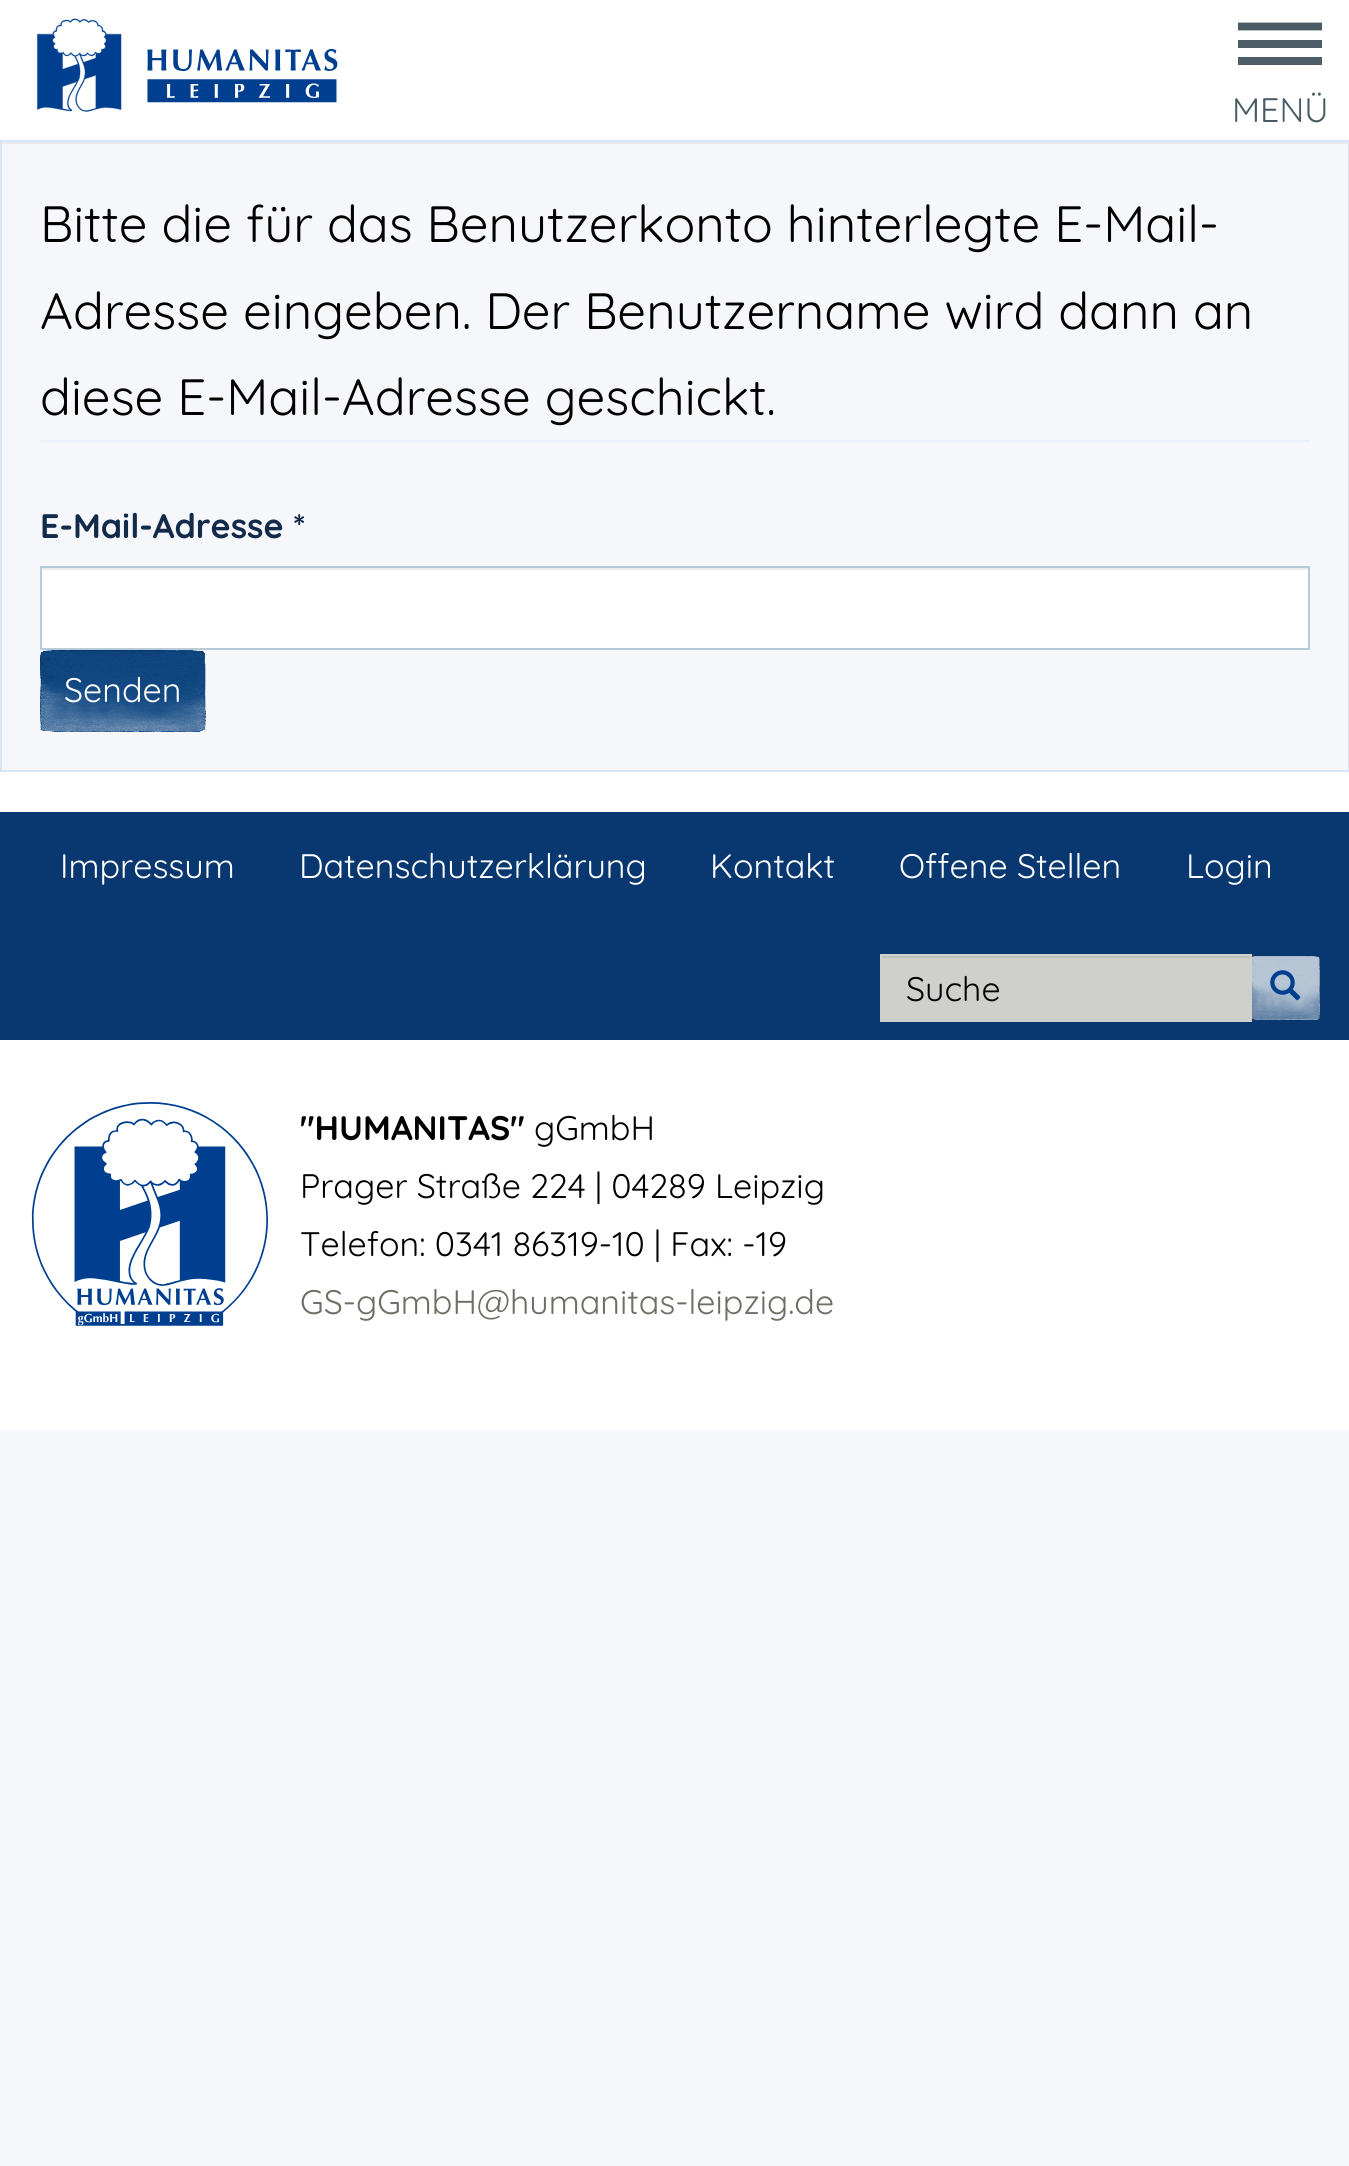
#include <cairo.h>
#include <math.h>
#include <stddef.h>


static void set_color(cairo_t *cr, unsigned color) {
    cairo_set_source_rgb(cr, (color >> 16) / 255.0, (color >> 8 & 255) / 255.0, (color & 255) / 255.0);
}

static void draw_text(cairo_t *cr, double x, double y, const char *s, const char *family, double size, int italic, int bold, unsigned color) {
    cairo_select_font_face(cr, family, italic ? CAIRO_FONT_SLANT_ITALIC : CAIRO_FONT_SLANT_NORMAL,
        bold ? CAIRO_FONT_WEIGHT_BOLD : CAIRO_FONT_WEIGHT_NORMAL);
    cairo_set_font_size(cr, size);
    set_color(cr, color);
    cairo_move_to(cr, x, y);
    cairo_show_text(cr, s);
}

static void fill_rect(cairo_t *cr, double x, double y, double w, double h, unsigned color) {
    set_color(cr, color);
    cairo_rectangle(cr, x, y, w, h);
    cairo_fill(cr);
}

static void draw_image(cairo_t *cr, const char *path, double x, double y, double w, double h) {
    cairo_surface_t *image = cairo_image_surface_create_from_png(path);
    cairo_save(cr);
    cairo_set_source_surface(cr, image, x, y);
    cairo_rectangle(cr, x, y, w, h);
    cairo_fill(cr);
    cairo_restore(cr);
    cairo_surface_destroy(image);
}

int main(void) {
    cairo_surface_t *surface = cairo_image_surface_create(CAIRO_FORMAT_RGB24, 1349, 2166);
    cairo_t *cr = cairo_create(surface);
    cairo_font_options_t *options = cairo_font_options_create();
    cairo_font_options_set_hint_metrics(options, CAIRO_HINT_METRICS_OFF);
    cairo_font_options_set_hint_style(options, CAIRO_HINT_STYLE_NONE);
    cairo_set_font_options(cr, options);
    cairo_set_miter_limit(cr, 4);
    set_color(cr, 0xF5F7FA);
    cairo_paint(cr);
    fill_rect(cr, 0, 0, 1349, 140, 0xFFFFFF);
    draw_image(cr, "assets/img1.png", 36, 18, 302, 94);
    cairo_new_path(cr);
    cairo_move_to(cr, 1238, 26.5);
    cairo_line_to(cr, 1322, 26.5);
    set_color(cr, 0x485A64);
    cairo_set_line_width(cr, 7.8);
    cairo_set_line_join(cr, CAIRO_LINE_JOIN_BEVEL);
    cairo_stroke(cr);
    fill_rect(cr, 1238, 40, 84, 8, 0x4D5E68);
    fill_rect(cr, 1238, 57, 84, 8, 0x4D5E68);
    draw_text(cr, 1232, 122, "MENÜ", "Quicksand", 34, 0, 0, 0x485A64);
    fill_rect(cr, 0, 772, 1349, 40, 0xFFFFFF);
    fill_rect(cr, 2, 142, 1346, 2, 0xE9ECEF);
    cairo_rectangle(cr, 1, 141, 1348, 630);
    set_color(cr, 0xDAE5F4);
    cairo_set_line_width(cr, 2);
    cairo_set_line_join(cr, CAIRO_LINE_JOIN_MITER);
    cairo_stroke(cr);
    fill_rect(cr, 40, 440, 1270, 2, 0xE9F0F9);
    draw_text(cr, 40, 242, "Bitte die für das Benutzerkonto hinterlegte E-Mail-", "Quicksand", 51, 0, 0, 0x000000);
    draw_text(cr, 40, 329, "Adresse eingeben. Der Benutzername wird dann an", "Quicksand", 51, 0, 0, 0x000000);
    draw_text(cr, 40, 415, "diese E-Mail-Adresse geschickt.", "Quicksand", 51, 0, 0, 0x000000);
    draw_text(cr, 40, 538, "E-Mail-Adresse *", "Quicksand", 34, 0, 1, 0x122B4A);
    fill_rect(cr, 42, 570, 1266, 78, 0xFFFFFF);
    fill_rect(cr, 42, 568, 1266, 2, 0xECECEC);
    cairo_rectangle(cr, 41, 567, 1268, 82);
    set_color(cr, 0xB7CBDA);
    cairo_stroke(cr);
    draw_image(cr, "assets/img2.png", 40, 650, 166, 82);
    draw_text(cr, 64, 702, "Senden", "Quicksand", 34, 0, 0, 0xFFFFFF);
    fill_rect(cr, 0, 812, 1349, 228, 0x093770);
    draw_text(cr, 60, 878, "Impressum", "Quicksand", 34, 0, 0, 0xFFFFFF);
    draw_text(cr, 299, 878, "Datenschutzerklärung", "Quicksand", 34, 0, 0, 0xFFFFFF);
    draw_text(cr, 710, 878, "Kontakt", "Quicksand", 34, 0, 0, 0xFFFFFF);
    draw_text(cr, 899, 878, "Offene Stellen", "Quicksand", 34, 0, 0, 0xFFFFFF);
    draw_text(cr, 1186, 878, "Login", "Quicksand", 34, 0, 0, 0xFFFFFF);
    fill_rect(cr, 880, 954, 372, 68, 0xCFCFCB);
    fill_rect(cr, 882, 956, 368, 2, 0xBFBFBC);
    draw_text(cr, 906, 1001, "Suche", "Quicksand", 34, 0, 0, 0x000000);
    draw_image(cr, "assets/img3.png", 1252, 956, 68, 64);
    draw_image(cr, "assets/img4.png", 1270, 970, 31, 31);
    fill_rect(cr, 0, 1040, 1349, 390, 0xFFFFFF);
    draw_image(cr, "assets/img5.png", 31, 1102, 237, 224);
    draw_text(cr, 300, 1140, "\"HUMANITAS\"", "Quicksand", 34, 0, 1, 0x000000);
    draw_text(cr, 534, 1140, "gGmbH", "Quicksand", 34, 0, 0, 0x000000);
    draw_text(cr, 300, 1198, "Prager Straße 224 | 04289 Leipzig", "Quicksand", 34, 0, 0, 0x000000);
    draw_text(cr, 300, 1256, "Telefon: 0341 86319-10 | Fax: -19", "Quicksand", 34, 0, 0, 0x000000);
    draw_text(cr, 300, 1314, "GS-gGmbH@humanitas-leipzig.de", "Quicksand", 34, 0, 0, 0x6F6F66);
    cairo_surface_write_to_png(surface, "output.png");
    cairo_font_options_destroy(options);
    cairo_destroy(cr);
    cairo_surface_destroy(surface);
    return 0;
}
